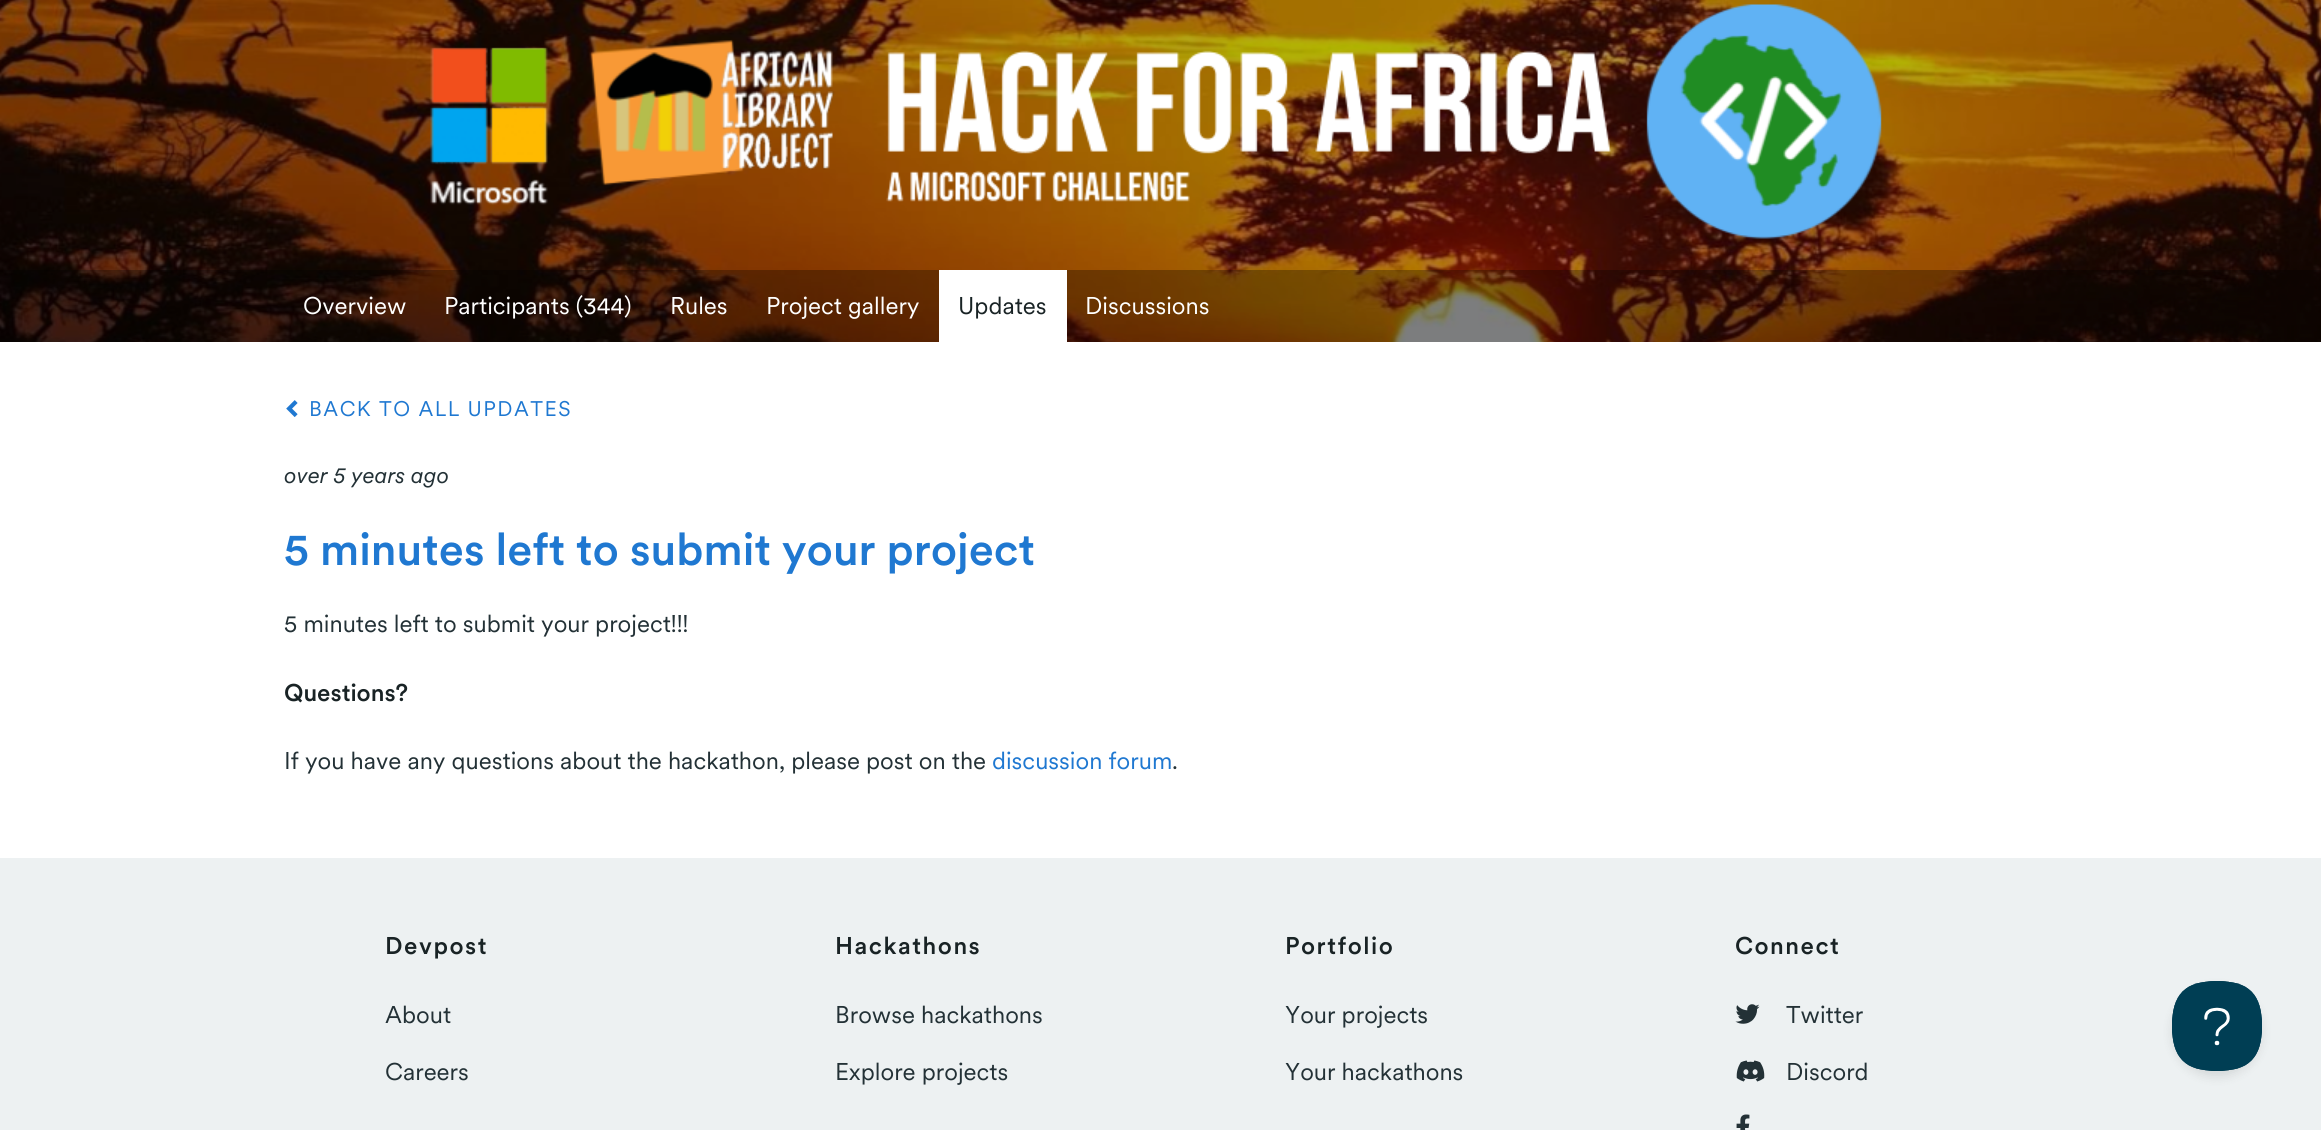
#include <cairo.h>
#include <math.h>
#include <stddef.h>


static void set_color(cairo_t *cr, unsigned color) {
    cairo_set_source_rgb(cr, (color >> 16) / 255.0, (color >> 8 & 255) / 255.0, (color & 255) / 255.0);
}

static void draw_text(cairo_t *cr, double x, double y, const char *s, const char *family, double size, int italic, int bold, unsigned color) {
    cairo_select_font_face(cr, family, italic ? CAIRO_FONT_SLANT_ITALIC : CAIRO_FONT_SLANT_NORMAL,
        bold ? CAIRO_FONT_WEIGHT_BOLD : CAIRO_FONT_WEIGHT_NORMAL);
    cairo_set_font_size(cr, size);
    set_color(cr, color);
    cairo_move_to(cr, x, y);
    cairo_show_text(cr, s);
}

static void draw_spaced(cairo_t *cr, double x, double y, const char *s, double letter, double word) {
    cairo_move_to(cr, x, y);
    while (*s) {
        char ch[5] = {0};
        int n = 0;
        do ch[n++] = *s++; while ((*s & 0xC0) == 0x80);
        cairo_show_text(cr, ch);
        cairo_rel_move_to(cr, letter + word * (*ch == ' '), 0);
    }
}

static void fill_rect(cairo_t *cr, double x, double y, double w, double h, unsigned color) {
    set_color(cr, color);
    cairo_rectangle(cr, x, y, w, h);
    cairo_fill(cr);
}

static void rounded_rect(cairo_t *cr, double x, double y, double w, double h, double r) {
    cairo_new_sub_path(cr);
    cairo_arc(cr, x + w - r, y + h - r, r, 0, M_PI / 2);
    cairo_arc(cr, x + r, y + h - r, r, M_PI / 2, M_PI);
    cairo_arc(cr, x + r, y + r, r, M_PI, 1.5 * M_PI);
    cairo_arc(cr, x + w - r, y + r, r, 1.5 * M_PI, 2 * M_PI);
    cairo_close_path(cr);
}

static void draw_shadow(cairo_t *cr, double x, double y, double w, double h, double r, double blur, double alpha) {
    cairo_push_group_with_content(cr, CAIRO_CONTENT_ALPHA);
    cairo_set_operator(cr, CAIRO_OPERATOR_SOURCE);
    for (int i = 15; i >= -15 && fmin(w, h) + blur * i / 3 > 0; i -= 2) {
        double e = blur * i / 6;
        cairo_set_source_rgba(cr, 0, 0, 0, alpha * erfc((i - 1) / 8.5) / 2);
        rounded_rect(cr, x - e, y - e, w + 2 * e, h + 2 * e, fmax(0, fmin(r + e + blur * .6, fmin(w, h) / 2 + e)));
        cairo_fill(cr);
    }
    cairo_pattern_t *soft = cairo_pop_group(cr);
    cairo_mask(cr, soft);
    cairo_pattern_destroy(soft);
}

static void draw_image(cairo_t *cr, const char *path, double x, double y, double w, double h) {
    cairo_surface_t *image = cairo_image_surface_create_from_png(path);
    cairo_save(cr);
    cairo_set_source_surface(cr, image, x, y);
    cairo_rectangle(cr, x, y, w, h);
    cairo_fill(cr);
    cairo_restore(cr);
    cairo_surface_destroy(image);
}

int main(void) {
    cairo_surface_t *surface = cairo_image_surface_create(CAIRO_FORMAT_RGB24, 2321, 1130);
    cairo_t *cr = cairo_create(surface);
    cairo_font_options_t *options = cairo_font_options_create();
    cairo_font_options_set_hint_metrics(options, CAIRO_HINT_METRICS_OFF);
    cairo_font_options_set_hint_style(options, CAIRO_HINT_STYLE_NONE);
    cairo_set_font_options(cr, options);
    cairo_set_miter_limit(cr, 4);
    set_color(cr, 0xFFFFFF);
    cairo_paint(cr);
    draw_image(cr, "assets/img1.png", 0, 0, 2321, 342);
    draw_image(cr, "assets/img2.png", 430, 4, 1452, 235);
    cairo_set_source_rgba(cr, 0, 0, 0, 0.3);
    cairo_rectangle(cr, 0, 270, 2321, 72);
    cairo_fill(cr);
    draw_text(cr, 303, 314, "Overview", "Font", 24, 0, 0, 0xFFFFFF);
    draw_text(cr, 444, 314, "Participants (344)", "Font", 24, 0, 0, 0xFFFFFF);
    draw_text(cr, 670, 314, "Rules", "Font", 24, 0, 0, 0xFFFFFF);
    draw_text(cr, 766, 314, "Project gallery", "Font", 24, 0, 0, 0xFFFFFF);
    fill_rect(cr, 939, 270, 128, 72, 0xFFFFFF);
    draw_text(cr, 958, 314, "Updates", "Font", 24, 0, 0, 0x192325);
    draw_text(cr, 1085, 314, "Discussions", "Font", 24, 0, 0, 0xFFFFFF);
    draw_image(cr, "assets/img3.png", 286, 400, 12, 17);
    cairo_set_font_size(cr, 21);
    set_color(cr, 0x1F78D1);
    draw_spaced(cr, 309, 416, "BACK TO ALL UPDATES", 1.5, 0);
    draw_text(cr, 284, 483, "over 5 years ago", "Font", 22.5, 1, 0, 0x233136);
    draw_text(cr, 284, 565, "5 minutes left to submit your project", "Font Medium", 45, 0, 0, 0x1F78D1);
    draw_text(cr, 284, 632, "5 minutes left to submit your project!!!", "Font", 24, 0, 0, 0x233136);
    draw_text(cr, 284, 701, "Questions?", "Font Medium", 24, 0, 0, 0x192325);
    draw_text(cr, 284, 769, "If you have any questions about the hackathon, please post on the", "Font", 24, 0, 0, 0x233136);
    draw_text(cr, 992, 769, "discussion forum", "Font", 24, 0, 0, 0x1F78D1);
    draw_text(cr, 1172, 769, ".", "Font", 24, 0, 0, 0x233136);
    fill_rect(cr, 0, 858, 2321, 272, 0xEDF1F2);
    cairo_select_font_face(cr, "Font Medium", CAIRO_FONT_SLANT_NORMAL, CAIRO_FONT_WEIGHT_NORMAL);
    set_color(cr, 0x192325);
    draw_spaced(cr, 385, 954, "Devpost", 1.5, 0);
    draw_text(cr, 385, 1023, "About", "Font", 24, 0, 0, 0x233136);
    draw_text(cr, 385, 1080, "Careers", "Font", 24, 0, 0, 0x233136);
    cairo_select_font_face(cr, "Font Medium", CAIRO_FONT_SLANT_NORMAL, CAIRO_FONT_WEIGHT_NORMAL);
    set_color(cr, 0x192325);
    draw_spaced(cr, 835, 954, "Hackathons", 1.5, 0);
    draw_text(cr, 835, 1023, "Browse hackathons", "Font", 24, 0, 0, 0x233136);
    draw_text(cr, 835, 1080, "Explore projects", "Font", 24, 0, 0, 0x233136);
    cairo_select_font_face(cr, "Font Medium", CAIRO_FONT_SLANT_NORMAL, CAIRO_FONT_WEIGHT_NORMAL);
    set_color(cr, 0x192325);
    draw_spaced(cr, 1285, 954, "Portfolio", 1.5, 0);
    draw_text(cr, 1285, 1023, "Your projects", "Font", 24, 0, 0, 0x233136);
    draw_text(cr, 1285, 1080, "Your hackathons", "Font", 24, 0, 0, 0x233136);
    cairo_select_font_face(cr, "Font Medium", CAIRO_FONT_SLANT_NORMAL, CAIRO_FONT_WEIGHT_NORMAL);
    set_color(cr, 0x192325);
    draw_spaced(cr, 1735, 954, "Connect", 1.5, 0);
    draw_image(cr, "assets/img4.png", 1735, 1004, 25, 20);
    draw_text(cr, 1786, 1023, "Twitter", "Font", 24, 0, 0, 0x233136);
    draw_image(cr, "assets/img5.png", 1736, 1060, 29, 22);
    draw_text(cr, 1786, 1080, "Discord", "Font", 24, 0, 0, 0x233136);
    draw_image(cr, "assets/img6.png", 1736, 1114, 14, 16);
    set_color(cr, 0x000000);
    draw_shadow(cr, 2172, 987, 90, 90, 45, 5, 0.1);
    draw_image(cr, "assets/img7.png", 2172, 981, 90, 90);
    cairo_surface_write_to_png(surface, "output.png");
    cairo_font_options_destroy(options);
    cairo_destroy(cr);
    cairo_surface_destroy(surface);
    return 0;
}
